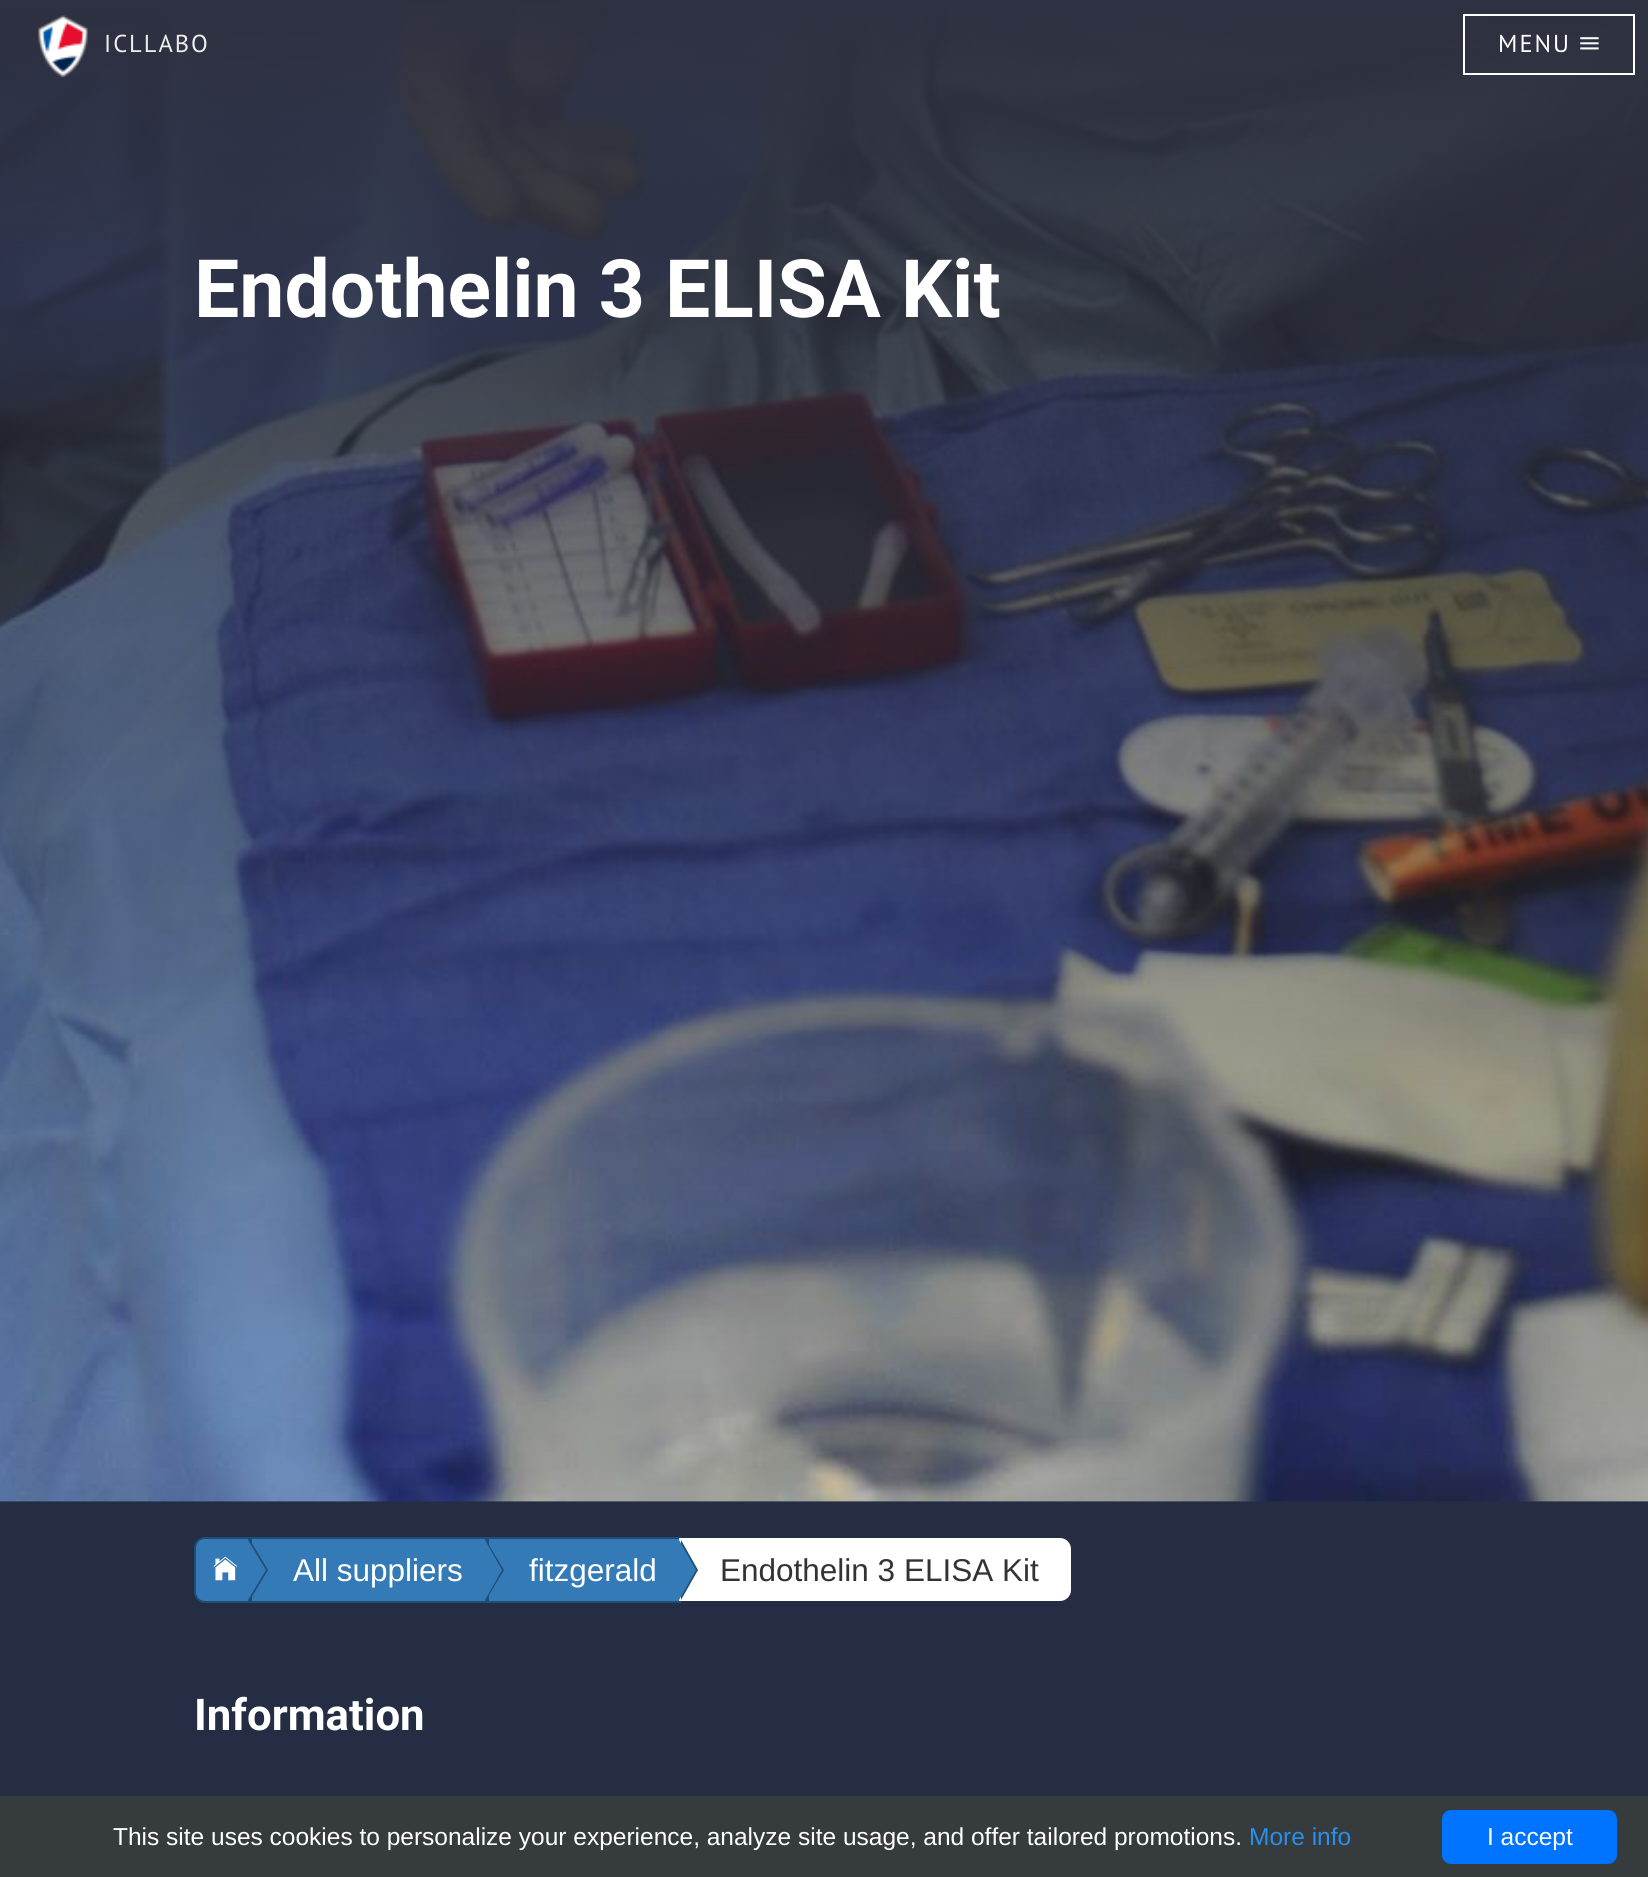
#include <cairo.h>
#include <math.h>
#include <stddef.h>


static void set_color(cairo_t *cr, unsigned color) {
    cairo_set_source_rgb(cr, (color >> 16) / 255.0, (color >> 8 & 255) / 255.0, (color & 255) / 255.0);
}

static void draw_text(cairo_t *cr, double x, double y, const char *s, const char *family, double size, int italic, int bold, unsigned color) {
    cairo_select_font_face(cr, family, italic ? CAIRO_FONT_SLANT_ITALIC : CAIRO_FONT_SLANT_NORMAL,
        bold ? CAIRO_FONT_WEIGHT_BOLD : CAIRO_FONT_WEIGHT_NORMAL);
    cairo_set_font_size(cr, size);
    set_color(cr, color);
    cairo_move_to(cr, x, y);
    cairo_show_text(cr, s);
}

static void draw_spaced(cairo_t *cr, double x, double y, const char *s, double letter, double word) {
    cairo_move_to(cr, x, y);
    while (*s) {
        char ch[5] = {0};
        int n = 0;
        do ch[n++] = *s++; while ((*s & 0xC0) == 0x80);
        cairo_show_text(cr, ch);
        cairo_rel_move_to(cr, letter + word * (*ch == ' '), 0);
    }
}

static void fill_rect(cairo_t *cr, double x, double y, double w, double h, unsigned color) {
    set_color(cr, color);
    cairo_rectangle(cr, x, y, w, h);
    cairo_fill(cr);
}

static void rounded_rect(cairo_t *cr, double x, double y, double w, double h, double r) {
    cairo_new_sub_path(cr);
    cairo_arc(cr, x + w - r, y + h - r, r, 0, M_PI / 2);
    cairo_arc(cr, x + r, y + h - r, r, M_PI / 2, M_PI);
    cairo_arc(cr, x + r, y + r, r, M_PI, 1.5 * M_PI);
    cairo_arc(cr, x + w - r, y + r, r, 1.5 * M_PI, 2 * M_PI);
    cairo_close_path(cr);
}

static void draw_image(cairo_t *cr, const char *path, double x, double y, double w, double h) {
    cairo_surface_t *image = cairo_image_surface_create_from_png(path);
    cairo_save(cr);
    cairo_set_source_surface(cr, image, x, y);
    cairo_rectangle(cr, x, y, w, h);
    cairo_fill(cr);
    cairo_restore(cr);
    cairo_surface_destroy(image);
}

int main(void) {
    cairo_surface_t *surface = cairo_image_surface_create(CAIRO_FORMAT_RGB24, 1648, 1877);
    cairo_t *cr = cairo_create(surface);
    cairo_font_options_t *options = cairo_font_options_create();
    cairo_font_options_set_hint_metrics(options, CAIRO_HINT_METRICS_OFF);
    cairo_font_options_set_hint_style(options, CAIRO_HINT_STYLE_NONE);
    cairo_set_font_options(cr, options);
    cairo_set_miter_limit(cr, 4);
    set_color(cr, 0x242D44);
    cairo_paint(cr);
    draw_image(cr, "assets/img3.png", 0, 0, 1648, 1502);
    draw_image(cr, "assets/img1.png", 38, 15, 50, 62);
    cairo_select_font_face(cr, "PT Sans", CAIRO_FONT_SLANT_NORMAL, CAIRO_FONT_WEIGHT_NORMAL);
    cairo_set_font_size(cr, 24.5);
    set_color(cr, 0xEEEEEE);
    draw_spaced(cr, 104, 52, "ICLLABO", 2, 0);
    cairo_rectangle(cr, 1464, 15, 170, 59);
    set_color(cr, 0xFFFFFF);
    cairo_stroke(cr);
    draw_spaced(cr, 1498, 52, "MENU", 2, 0);
    draw_image(cr, "assets/img2.png", 1580, 37, 19, 13);
    draw_text(cr, 194, 317, "Endothelin 3 ELISA Kit", "Roboto", 80.5, 0, 1, 0xFFFFFF);
    set_color(cr, 0x337AB7);
    cairo_new_path(cr);
    cairo_move_to(cr, 205, 1538);
    cairo_line_to(cr, 249, 1538);
    cairo_line_to(cr, 249, 1602);
    cairo_line_to(cr, 205, 1602);
    cairo_curve_to(cr, 199.5, 1602, 195, 1597.5, 195, 1592);
    cairo_line_to(cr, 195, 1548);
    cairo_curve_to(cr, 195, 1542.5, 199.5, 1538, 205, 1538);
    cairo_close_path(cr);
    cairo_fill_preserve(cr);
    set_color(cr, 0x204D74);
    cairo_stroke(cr);
    set_color(cr, 0x337AB7);
    cairo_rectangle(cr, 251, 1538, 235, 64);
    cairo_fill_preserve(cr);
    set_color(cr, 0x204D74);
    cairo_stroke(cr);
    cairo_new_path(cr);
    cairo_move_to(cr, 250, 1600);
    cairo_line_to(cr, 250, 1540);
    cairo_line_to(cr, 268, 1570);
    cairo_close_path(cr);
    cairo_fill(cr);
    set_color(cr, 0x337AB7);
    cairo_new_path(cr);
    cairo_move_to(cr, 248, 1600);
    cairo_line_to(cr, 248, 1540);
    cairo_line_to(cr, 266, 1570);
    cairo_close_path(cr);
    cairo_fill(cr);
    draw_image(cr, "assets/img4.png", 213, 1556, 24, 25);
    cairo_rectangle(cr, 488, 1538, 192, 64);
    cairo_fill_preserve(cr);
    set_color(cr, 0x204D74);
    cairo_stroke(cr);
    cairo_new_path(cr);
    cairo_move_to(cr, 486, 1600);
    cairo_line_to(cr, 486, 1540);
    cairo_line_to(cr, 504, 1570);
    cairo_close_path(cr);
    cairo_fill(cr);
    set_color(cr, 0x337AB7);
    cairo_new_path(cr);
    cairo_move_to(cr, 485, 1600);
    cairo_line_to(cr, 485, 1540);
    cairo_line_to(cr, 502, 1570);
    cairo_close_path(cr);
    cairo_fill(cr);
    draw_text(cr, 293, 1581, "All suppliers", "Liberation Sans", 31.5, 0, 0, 0xFFFFFF);
    cairo_new_path(cr);
    cairo_move_to(cr, 679, 1538);
    cairo_line_to(cr, 1060, 1538);
    cairo_curve_to(cr, 1066, 1538, 1071, 1543, 1071, 1549);
    cairo_line_to(cr, 1071, 1590);
    cairo_curve_to(cr, 1071, 1596, 1066, 1601, 1060, 1601);
    cairo_line_to(cr, 679, 1601);
    cairo_close_path(cr);
    cairo_fill(cr);
    set_color(cr, 0x204D74);
    cairo_new_path(cr);
    cairo_move_to(cr, 681, 1600);
    cairo_line_to(cr, 681, 1540);
    cairo_line_to(cr, 698, 1570);
    cairo_close_path(cr);
    cairo_fill(cr);
    set_color(cr, 0x337AB7);
    cairo_new_path(cr);
    cairo_move_to(cr, 679, 1600);
    cairo_line_to(cr, 679, 1540);
    cairo_line_to(cr, 696, 1570);
    cairo_close_path(cr);
    cairo_fill(cr);
    draw_text(cr, 529, 1581, "fitzgerald", "Liberation Sans", 31.5, 0, 0, 0xFFFFFF);
    draw_text(cr, 720, 1581, "Endothelin 3 ELISA Kit", "Liberation Sans", 31.5, 0, 0, 0x333333);
    draw_text(cr, 194, 1730, "Information", "Roboto", 43.75, 0, 1, 0xFFFFFF);
    fill_rect(cr, 0, 1796, 1648, 81, 0x363B3E);
    draw_text(cr, 113, 1845, "This site uses cookies to personalize your experience, analyze site usage, and offer tailored promotions.", "Liberation Sans", 24.5, 0, 0, 0xFFFFFF);
    draw_text(cr, 1249, 1845, "More info", "Liberation Sans", 24.5, 0, 0, 0x2990EA);
    set_color(cr, 0x0073FF);
    rounded_rect(cr, 1442, 1810, 175, 54, 9);
    cairo_fill(cr);
    draw_text(cr, 1487, 1845, "I accept", "Liberation Sans", 24.5, 0, 0, 0xFFFFFF);
    cairo_surface_write_to_png(surface, "output.png");
    cairo_font_options_destroy(options);
    cairo_destroy(cr);
    cairo_surface_destroy(surface);
    return 0;
}
